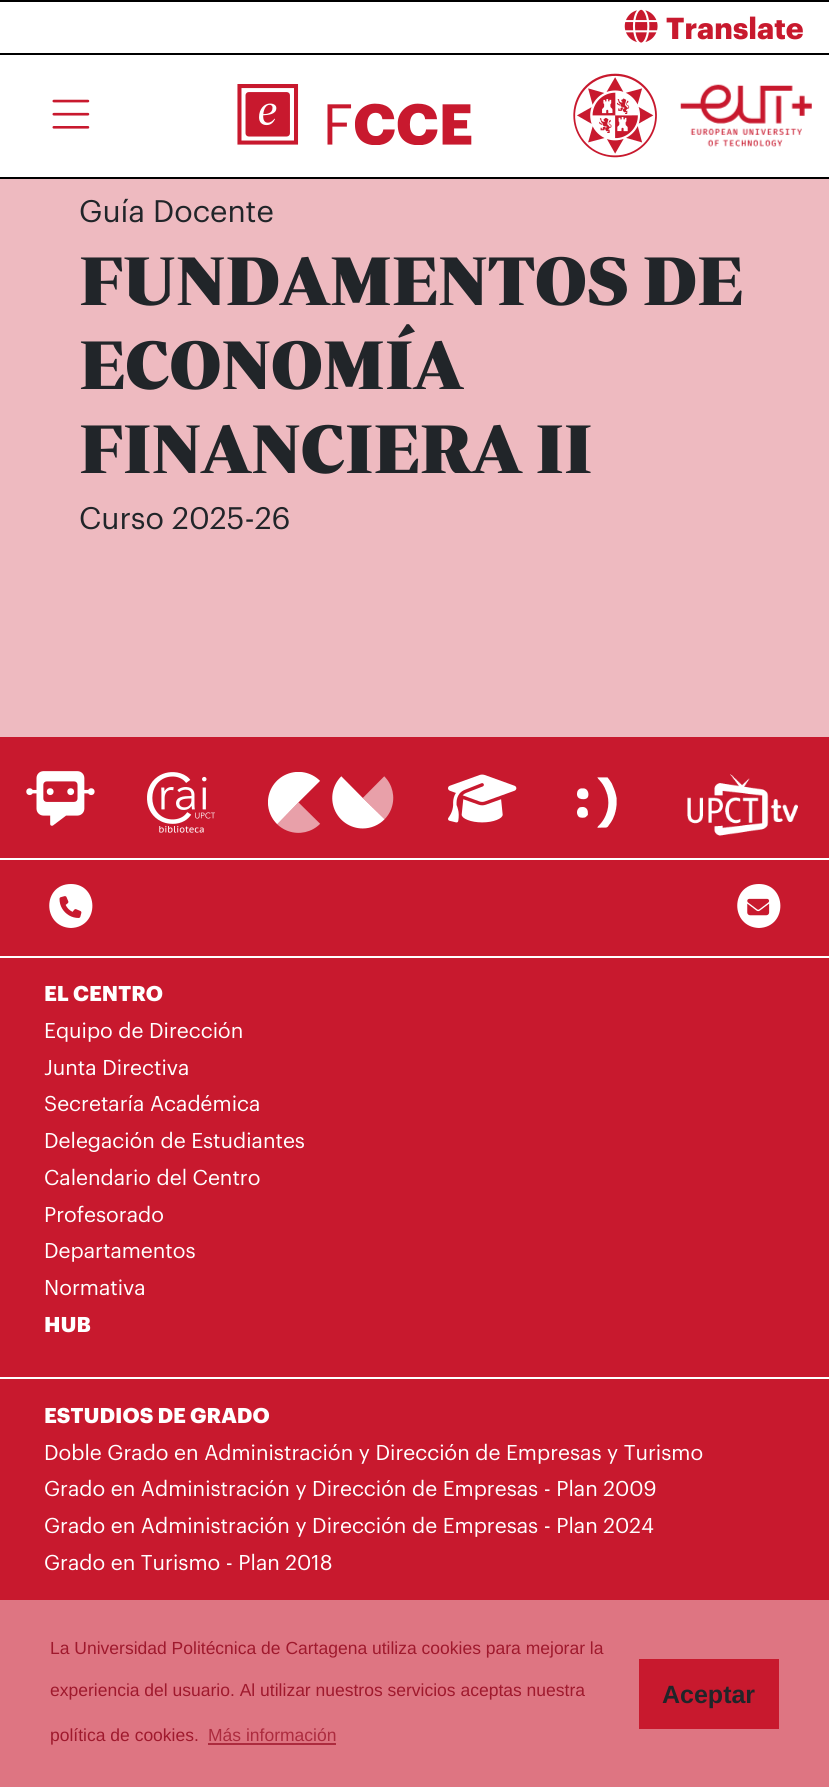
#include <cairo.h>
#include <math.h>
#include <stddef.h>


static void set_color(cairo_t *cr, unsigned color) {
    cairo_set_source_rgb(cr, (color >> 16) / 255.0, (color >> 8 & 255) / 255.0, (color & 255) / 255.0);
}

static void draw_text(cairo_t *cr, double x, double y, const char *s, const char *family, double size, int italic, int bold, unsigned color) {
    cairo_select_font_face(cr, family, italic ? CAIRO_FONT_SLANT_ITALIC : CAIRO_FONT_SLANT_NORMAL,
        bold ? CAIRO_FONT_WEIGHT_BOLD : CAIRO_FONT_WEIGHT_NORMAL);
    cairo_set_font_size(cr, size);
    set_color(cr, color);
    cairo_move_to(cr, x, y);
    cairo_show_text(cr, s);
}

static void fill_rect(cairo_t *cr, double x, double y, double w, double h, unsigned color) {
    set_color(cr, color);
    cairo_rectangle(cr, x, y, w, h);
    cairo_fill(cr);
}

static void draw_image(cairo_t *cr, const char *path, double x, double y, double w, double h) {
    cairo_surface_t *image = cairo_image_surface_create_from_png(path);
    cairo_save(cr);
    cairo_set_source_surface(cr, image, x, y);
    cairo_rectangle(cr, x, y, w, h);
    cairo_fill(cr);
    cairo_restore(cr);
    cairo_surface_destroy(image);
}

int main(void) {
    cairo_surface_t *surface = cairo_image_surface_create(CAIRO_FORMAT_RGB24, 829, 1787);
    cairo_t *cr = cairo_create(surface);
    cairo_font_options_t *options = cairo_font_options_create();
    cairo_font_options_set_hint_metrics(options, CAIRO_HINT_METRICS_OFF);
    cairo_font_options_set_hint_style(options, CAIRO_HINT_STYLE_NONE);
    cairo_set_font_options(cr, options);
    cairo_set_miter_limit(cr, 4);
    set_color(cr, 0xEEBAC0);
    cairo_paint(cr);
    fill_rect(cr, 0, 2, 829, 51, 0xFFFFFF);
    fill_rect(cr, 0, 0, 829, 2, 0x000000);
    draw_image(cr, "assets/img1.png", 624, 9, 34, 34);
    draw_text(cr, 666, 39, "Translate", "Graphik", 29.75, 0, 1, 0xC8192E);
    fill_rect(cr, 0, 55, 829, 122, 0xFFFFFF);
    fill_rect(cr, 0, 53, 829, 2, 0x000000);
    fill_rect(cr, 0, 177, 829, 2, 0x000000);
    draw_image(cr, "assets/img2.png", 52, 99, 38, 30);
    draw_image(cr, "assets/img3.png", 237, 84, 235, 61);
    draw_image(cr, "assets/img4.png", 573, 73, 84, 85);
    draw_image(cr, "assets/img5.png", 680, 84, 132, 63);
    draw_text(cr, 79, 222, "Guía Docente", "Graphik", 30.5, 0, 0, 0x212529);
    draw_text(cr, 79, 305, "FUNDAMENTOS DE", "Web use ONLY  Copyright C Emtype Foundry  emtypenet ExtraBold", 70, 0, 0, 0x212529);
    draw_text(cr, 79, 389, "ECONOMÍA", "Web use ONLY  Copyright C Emtype Foundry  emtypenet ExtraBold", 70, 0, 0, 0x212529);
    draw_text(cr, 79, 473, "FINANCIERA II", "Web use ONLY  Copyright C Emtype Foundry  emtypenet ExtraBold", 70, 0, 0, 0x212529);
    draw_text(cr, 79, 529, "Curso 2025-26", "Graphik", 30.5, 0, 0, 0x212529);
    fill_rect(cr, 0, 737, 829, 863, 0xC8192E);
    fill_rect(cr, 0, 858, 829, 2, 0xFFFFFF);
    draw_image(cr, "assets/img6.png", 26, 771, 69, 55);
    draw_image(cr, "assets/img7.png", 147, 772, 68, 61);
    draw_image(cr, "assets/img8.png", 268, 772, 126, 61);
    draw_image(cr, "assets/img9.png", 448, 774, 69, 49);
    draw_image(cr, "assets/img10.png", 577, 777, 40, 51);
    draw_image(cr, "assets/img11.png", 687, 774, 111, 62);
    cairo_new_path(cr);
    cairo_move_to(cr, 71, 928);
    cairo_curve_to(cr, 100, 927, 99, 884, 71, 884);
    cairo_curve_to(cr, 42, 884, 42, 927, 71, 928);
    cairo_close_path(cr);
    cairo_fill(cr);
    draw_image(cr, "assets/img12.png", 59, 896, 23, 22);
    cairo_new_path(cr);
    cairo_move_to(cr, 759, 928);
    cairo_curve_to(cr, 788, 927, 787, 884, 759, 884);
    cairo_curve_to(cr, 730, 884, 730, 927, 759, 928);
    cairo_close_path(cr);
    cairo_fill(cr);
    draw_image(cr, "assets/img13.png", 747, 898, 23, 18);
    fill_rect(cr, 0, 956, 829, 2, 0xFFFFFF);
    draw_text(cr, 44, 1001, "EL CENTRO", "Graphik", 21, 0, 1, 0xFFFFFF);
    draw_text(cr, 44, 1038, "Equipo de Dirección", "Graphik", 21, 0, 0, 0xFFFFFF);
    draw_text(cr, 44, 1075, "Junta Directiva", "Graphik", 21, 0, 0, 0xFFFFFF);
    draw_text(cr, 44, 1111, "Secretaría Académica", "Graphik", 21, 0, 0, 0xFFFFFF);
    draw_text(cr, 44, 1148, "Delegación de Estudiantes", "Graphik", 21, 0, 0, 0xFFFFFF);
    draw_text(cr, 44, 1185, "Calendario del Centro", "Graphik", 21, 0, 0, 0xFFFFFF);
    draw_text(cr, 44, 1222, "Profesorado", "Graphik", 21, 0, 0, 0xFFFFFF);
    draw_text(cr, 44, 1258, "Departamentos", "Graphik", 21, 0, 0, 0xFFFFFF);
    draw_text(cr, 44, 1295, "Normativa", "Graphik", 21, 0, 0, 0xFFFFFF);
    draw_text(cr, 44, 1332, "HUB", "Graphik", 21, 0, 1, 0xFFFFFF);
    fill_rect(cr, 0, 1377, 829, 2, 0xFFFFFF);
    draw_text(cr, 44, 1423, "ESTUDIOS DE GRADO", "Graphik", 21, 0, 1, 0xFFFFFF);
    draw_text(cr, 44, 1460, "Doble Grado en Administración y Dirección de Empresas y Turismo", "Graphik", 21, 0, 0, 0xFFFFFF);
    draw_text(cr, 44, 1496, "Grado en Administración y Dirección de Empresas - Plan 2009", "Graphik", 21, 0, 0, 0xFFFFFF);
    draw_text(cr, 44, 1533, "Grado en Administración y Dirección de Empresas - Plan 2024", "Graphik", 21, 0, 0, 0xFFFFFF);
    draw_text(cr, 44, 1570, "Grado en Turismo - Plan 2018", "Graphik", 21, 0, 0, 0xFFFFFF);
    fill_rect(cr, 0, 1600, 829, 187, 0xDE7582);
    draw_text(cr, 50, 1654, "La Universidad Politécnica de Cartagena utiliza cookies para mejorar la", "Liberation Sans", 17.5, 0, 0, 0x9F192D);
    draw_text(cr, 50, 1696, "experiencia del usuario. Al utilizar nuestros servicios aceptas nuestra", "Liberation Sans", 17.5, 0, 0, 0x9F192D);
    draw_text(cr, 50, 1741, "política de cookies.", "Liberation Sans", 17.5, 0, 0, 0x9F192D);
    draw_text(cr, 208, 1741, "Más información", "Liberation Sans", 17.5, 0, 0, 0xAC2B3E);
    fill_rect(cr, 208, 1743, 128, 2, 0xAC2B3E);
    fill_rect(cr, 639, 1659, 140, 70, 0xC8192E);
    draw_text(cr, 662, 1703, "Aceptar", "Liberation Sans", 25, 0, 1, 0x212529);
    cairo_surface_write_to_png(surface, "output.png");
    cairo_font_options_destroy(options);
    cairo_destroy(cr);
    cairo_surface_destroy(surface);
    return 0;
}
